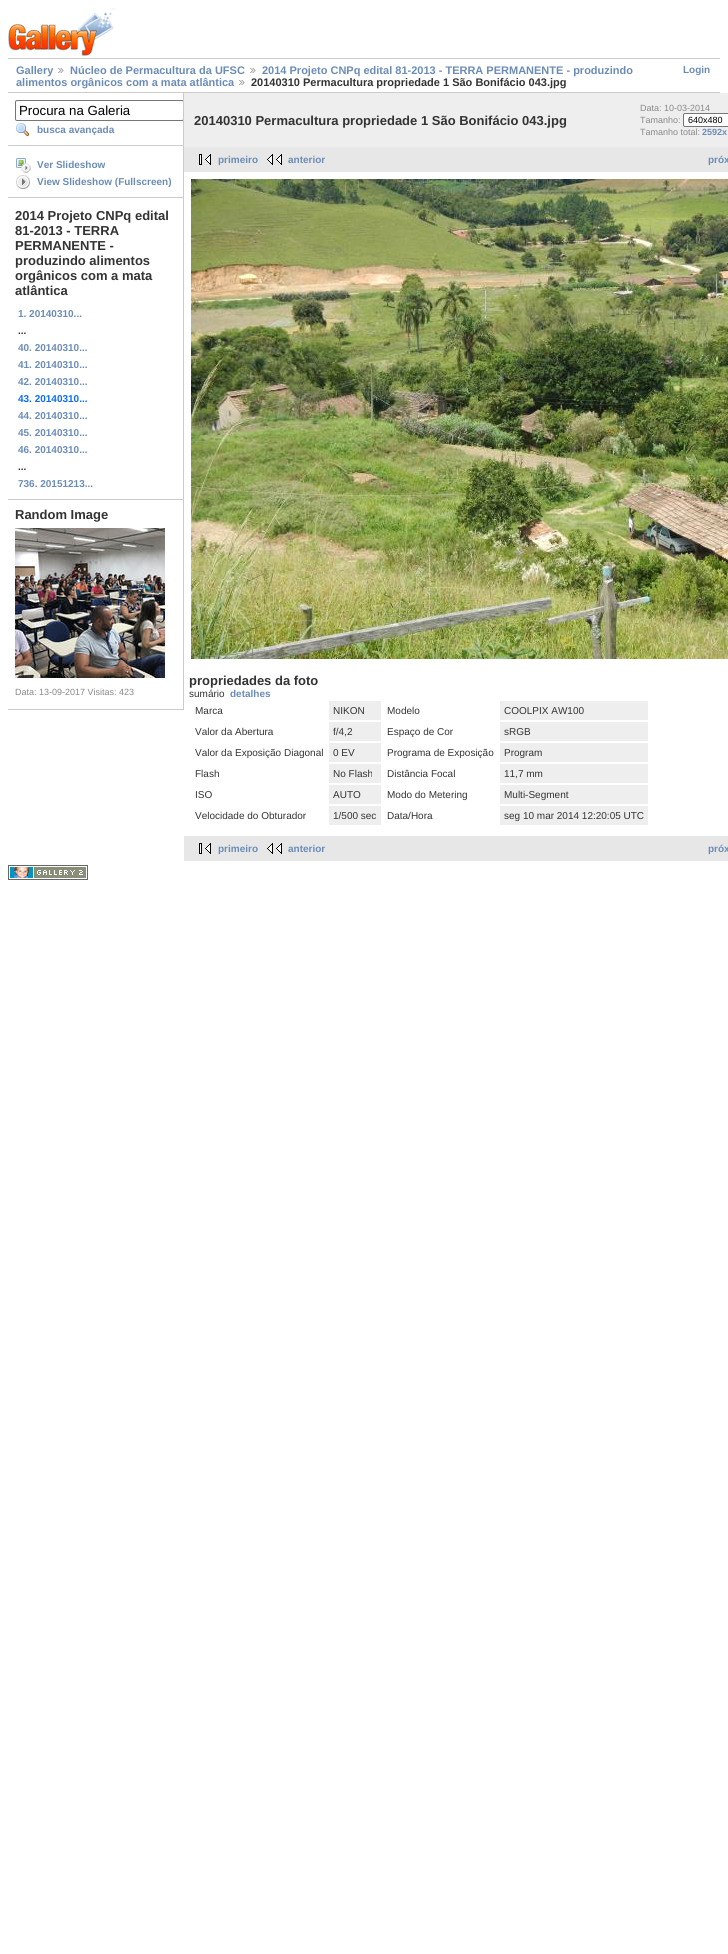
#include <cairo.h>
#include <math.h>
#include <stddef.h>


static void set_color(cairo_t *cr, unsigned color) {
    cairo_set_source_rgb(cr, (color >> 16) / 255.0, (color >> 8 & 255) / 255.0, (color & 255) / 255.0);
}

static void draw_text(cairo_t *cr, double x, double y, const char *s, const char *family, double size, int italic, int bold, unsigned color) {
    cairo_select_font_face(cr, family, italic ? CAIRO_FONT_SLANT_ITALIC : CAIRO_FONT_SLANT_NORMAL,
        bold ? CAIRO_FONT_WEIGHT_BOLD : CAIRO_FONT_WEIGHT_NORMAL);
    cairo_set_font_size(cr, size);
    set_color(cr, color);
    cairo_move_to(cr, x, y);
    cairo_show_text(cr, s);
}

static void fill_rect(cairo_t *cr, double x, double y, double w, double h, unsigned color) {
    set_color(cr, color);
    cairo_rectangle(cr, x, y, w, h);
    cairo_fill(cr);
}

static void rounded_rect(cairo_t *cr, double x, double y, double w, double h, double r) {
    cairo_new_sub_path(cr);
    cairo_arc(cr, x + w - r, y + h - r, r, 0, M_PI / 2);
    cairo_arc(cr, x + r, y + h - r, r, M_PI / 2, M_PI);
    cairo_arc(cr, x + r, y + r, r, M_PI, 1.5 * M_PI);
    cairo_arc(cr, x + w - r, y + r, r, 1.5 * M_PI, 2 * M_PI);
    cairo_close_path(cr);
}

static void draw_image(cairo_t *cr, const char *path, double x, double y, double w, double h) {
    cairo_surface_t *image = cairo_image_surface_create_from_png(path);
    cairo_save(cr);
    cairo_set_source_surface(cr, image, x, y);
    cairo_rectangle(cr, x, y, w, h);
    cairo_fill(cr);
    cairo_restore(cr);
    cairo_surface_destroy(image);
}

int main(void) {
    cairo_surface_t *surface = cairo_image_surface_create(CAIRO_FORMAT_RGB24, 728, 1954);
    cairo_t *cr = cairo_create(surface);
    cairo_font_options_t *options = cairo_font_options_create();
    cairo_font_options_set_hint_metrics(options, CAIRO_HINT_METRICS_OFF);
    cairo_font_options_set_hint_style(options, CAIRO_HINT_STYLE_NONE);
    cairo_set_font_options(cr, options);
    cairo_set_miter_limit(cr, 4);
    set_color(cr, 0xFFFFFF);
    cairo_paint(cr);
    draw_image(cr, "assets/img1.png", 8, 8, 107, 48);
    fill_rect(cr, 8, 58, 712, 1, 0xCCCCCC);
    fill_rect(cr, 8, 92, 712, 1, 0xCCCCCC);
    draw_text(cr, 16, 74, "Gallery", "Liberation Sans", 11, 0, 1, 0x6B8CB7);
    draw_image(cr, "assets/img2.png", 58, 68, 6, 5);
    draw_text(cr, 70, 74, "Núcleo de Permacultura da UFSC", "Liberation Sans", 11, 0, 1, 0x6B8CB7);
    draw_image(cr, "assets/img2.png", 250, 68, 6, 5);
    draw_text(cr, 262, 74, "2014 Projeto CNPq edital 81-2013 - TERRA PERMANENTE - produzindo", "Liberation Sans", 11, 0, 1, 0x6B8CB7);
    draw_text(cr, 16, 86, "alimentos orgânicos com a mata atlântica", "Liberation Sans", 11, 0, 1, 0x6B8CB7);
    draw_image(cr, "assets/img2.png", 239, 80, 6, 5);
    draw_text(cr, 251, 86, "20140310 Permacultura propriedade 1 São Bonifácio 043.jpg", "Liberation Sans", 11, 0, 1, 0x333333);
    draw_text(cr, 683, 73, "Login", "Liberation Sans", 10, 0, 1, 0x6B8CB7);
    fill_rect(cr, 183, 93, 1, 617, 0xCCCCCC);
    fill_rect(cr, 8, 145, 175, 1, 0xCCCCCC);
    cairo_save(cr);
    cairo_rectangle(cr, 8, 93, 175, 617);
    cairo_clip(cr);
    rounded_rect(cr, 15.5, 100.5, 168, 20, 1.5);
    set_color(cr, 0x767676);
    cairo_set_line_width(cr, 1);
    cairo_stroke(cr);
    cairo_restore(cr);
    draw_text(cr, 19, 115, "Procura na Galeria", "Liberation Sans", 13.25, 0, 0, 0x000000);
    draw_image(cr, "assets/img3.png", 16, 123, 13, 14);
    draw_text(cr, 37, 133, "busca avançada", "Liberation Sans", 10, 0, 1, 0x6B8CB7);
    fill_rect(cr, 8, 197, 175, 1, 0xCCCCCC);
    draw_image(cr, "assets/img4.png", 16, 158, 15, 15);
    draw_text(cr, 37, 168, "Ver Slideshow", "Liberation Sans", 10, 0, 1, 0x6B8CB7);
    draw_image(cr, "assets/img5.png", 16, 175, 14, 14);
    draw_text(cr, 37, 185, "View Slideshow (Fullscreen)", "Liberation Sans", 10, 0, 1, 0x6B8CB7);
    fill_rect(cr, 8, 499, 175, 1, 0xCCCCCC);
    draw_text(cr, 15, 220, "2014 Projeto CNPq edital", "Liberation Sans", 13, 0, 1, 0x333333);
    draw_text(cr, 15, 235, "81-2013 - TERRA", "Liberation Sans", 13, 0, 1, 0x333333);
    draw_text(cr, 15, 250, "PERMANENTE -", "Liberation Sans", 13, 0, 1, 0x333333);
    draw_text(cr, 15, 265, "produzindo alimentos", "Liberation Sans", 13, 0, 1, 0x333333);
    draw_text(cr, 15, 280, "orgânicos com a mata", "Liberation Sans", 13, 0, 1, 0x333333);
    draw_text(cr, 15, 295, "atlântica", "Liberation Sans", 13, 0, 1, 0x333333);
    draw_text(cr, 18, 317, "1. 20140310...", "Liberation Sans", 10, 0, 1, 0x6B8CB7);
    draw_text(cr, 18, 334, "...", "Liberation Sans", 10, 0, 1, 0x333333);
    draw_text(cr, 18, 351, "40. 20140310...", "Liberation Sans", 10, 0, 1, 0x6B8CB7);
    draw_text(cr, 18, 368, "41. 20140310...", "Liberation Sans", 10, 0, 1, 0x6B8CB7);
    draw_text(cr, 18, 385, "42. 20140310...", "Liberation Sans", 10, 0, 1, 0x6B8CB7);
    draw_text(cr, 18, 402, "43. 20140310...", "Liberation Sans", 10, 0, 1, 0x0B6CFF);
    draw_text(cr, 18, 419, "44. 20140310...", "Liberation Sans", 10, 0, 1, 0x6B8CB7);
    draw_text(cr, 18, 436, "45. 20140310...", "Liberation Sans", 10, 0, 1, 0x6B8CB7);
    draw_text(cr, 18, 453, "46. 20140310...", "Liberation Sans", 10, 0, 1, 0x6B8CB7);
    draw_text(cr, 18, 470, "...", "Liberation Sans", 10, 0, 1, 0x333333);
    draw_text(cr, 18, 487, "736. 20151213...", "Liberation Sans", 10, 0, 1, 0x6B8CB7);
    fill_rect(cr, 8, 709, 175, 1, 0xCCCCCC);
    draw_text(cr, 15, 519, "Random Image", "Liberation Sans", 13, 0, 1, 0x333333);
    draw_image(cr, "assets/img6.png", 15, 528, 150, 150);
    draw_text(cr, 15, 695, "Data: 13-09-2017 Visitas: 423", "Liberation Sans", 9, 0, 0, 0x888888);
    fill_rect(cr, 184, 93, 544, 54, 0xEEEEEE);
    draw_text(cr, 194, 125, "20140310 Permacultura propriedade 1 São Bonifácio 043.jpg", "Liberation Sans", 13, 0, 1, 0x333333);
    draw_text(cr, 640, 111, "Data: 10-03-2014", "Liberation Sans", 9, 0, 0, 0x888888);
    draw_text(cr, 640, 123, "Tamanho:", "Liberation Sans", 9, 0, 0, 0x888888);
    set_color(cr, 0xFFFFFF);
    rounded_rect(cr, 683.5, 113.5, 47, 13, 1.5);
    cairo_fill_preserve(cr);
    set_color(cr, 0x767676);
    cairo_set_line_width(cr, 1);
    cairo_stroke(cr);
    draw_text(cr, 688, 123, "640x480", "Liberation Sans", 9, 0, 0, 0x000000);
    draw_text(cr, 640, 135, "Tamanho total:", "Liberation Sans", 9, 0, 0, 0x888888);
    draw_text(cr, 702, 135, "2592x", "Liberation Sans", 9, 0, 1, 0x6B8CB7);
    fill_rect(cr, 184, 147, 544, 25, 0xE7E7E7);
    draw_image(cr, "assets/img7.png", 199, 154, 12, 11);
    draw_text(cr, 218, 163, "primeiro", "Liberation Sans", 10, 0, 1, 0x6B8CB7);
    draw_image(cr, "assets/img8.png", 267, 154, 15, 11);
    draw_text(cr, 288, 163, "anterior", "Liberation Sans", 10, 0, 1, 0x6B8CB7);
    draw_text(cr, 708, 163, "próx", "Liberation Sans", 10, 0, 1, 0x6B8CB7);
    draw_image(cr, "assets/img9.png", 191, 179, 537, 480);
    draw_text(cr, 189, 685, "propriedades da foto", "Liberation Sans", 13, 0, 1, 0x333333);
    draw_text(cr, 189, 697, "sumário", "Liberation Sans", 10, 0, 0, 0x333333);
    draw_text(cr, 230, 697, "detalhes", "Liberation Sans", 10, 0, 1, 0x6B8CB7);
    draw_text(cr, 195, 714, "Marca", "Liberation Sans", 10, 0, 0, 0x333333);
    fill_rect(cr, 329, 701, 52, 19, 0xEEEEEE);
    draw_text(cr, 333, 714, "NIKON", "Liberation Sans", 10, 0, 0, 0x333333);
    draw_text(cr, 387, 714, "Modelo", "Liberation Sans", 10, 0, 0, 0x333333);
    fill_rect(cr, 500, 701, 148, 19, 0xEEEEEE);
    draw_text(cr, 504, 714, "COOLPIX AW100", "Liberation Sans", 10, 0, 0, 0x333333);
    draw_text(cr, 195, 735, "Valor da Abertura", "Liberation Sans", 10, 0, 0, 0x333333);
    fill_rect(cr, 329, 722, 52, 19, 0xEEEEEE);
    draw_text(cr, 333, 735, "f/4,2", "Liberation Sans", 10, 0, 0, 0x333333);
    draw_text(cr, 387, 735, "Espaço de Cor", "Liberation Sans", 10, 0, 0, 0x333333);
    fill_rect(cr, 500, 722, 148, 19, 0xEEEEEE);
    draw_text(cr, 504, 735, "sRGB", "Liberation Sans", 10, 0, 0, 0x333333);
    draw_text(cr, 195, 756, "Valor da Exposição Diagonal", "Liberation Sans", 10, 0, 0, 0x333333);
    fill_rect(cr, 329, 743, 52, 19, 0xEEEEEE);
    draw_text(cr, 333, 756, "0 EV", "Liberation Sans", 10, 0, 0, 0x333333);
    draw_text(cr, 387, 756, "Programa de Exposição", "Liberation Sans", 10, 0, 0, 0x333333);
    fill_rect(cr, 500, 743, 148, 19, 0xEEEEEE);
    draw_text(cr, 504, 756, "Program", "Liberation Sans", 10, 0, 0, 0x333333);
    draw_text(cr, 195, 777, "Flash", "Liberation Sans", 10, 0, 0, 0x333333);
    fill_rect(cr, 329, 764, 52, 19, 0xEEEEEE);
    draw_text(cr, 333, 777, "No Flash", "Liberation Sans", 10, 0, 0, 0x333333);
    draw_text(cr, 387, 777, "Distância Focal", "Liberation Sans", 10, 0, 0, 0x333333);
    fill_rect(cr, 500, 764, 148, 19, 0xEEEEEE);
    draw_text(cr, 504, 777, "11,7 mm", "Liberation Sans", 10, 0, 0, 0x333333);
    draw_text(cr, 195, 798, "ISO", "Liberation Sans", 10, 0, 0, 0x333333);
    fill_rect(cr, 329, 785, 52, 19, 0xEEEEEE);
    draw_text(cr, 333, 798, "AUTO", "Liberation Sans", 10, 0, 0, 0x333333);
    draw_text(cr, 387, 798, "Modo do Metering", "Liberation Sans", 10, 0, 0, 0x333333);
    fill_rect(cr, 500, 785, 148, 19, 0xEEEEEE);
    draw_text(cr, 504, 798, "Multi-Segment", "Liberation Sans", 10, 0, 0, 0x333333);
    draw_text(cr, 195, 819, "Velocidade do Obturador", "Liberation Sans", 10, 0, 0, 0x333333);
    fill_rect(cr, 329, 806, 52, 19, 0xEEEEEE);
    draw_text(cr, 333, 819, "1/500 sec", "Liberation Sans", 10, 0, 0, 0x333333);
    draw_text(cr, 387, 819, "Data/Hora", "Liberation Sans", 10, 0, 0, 0x333333);
    fill_rect(cr, 500, 806, 148, 19, 0xEEEEEE);
    draw_text(cr, 504, 819, "seg 10 mar 2014 12:20:05 UTC", "Liberation Sans", 10, 0, 0, 0x333333);
    fill_rect(cr, 184, 836, 544, 25, 0xE7E7E7);
    draw_image(cr, "assets/img7.png", 199, 843, 12, 11);
    draw_text(cr, 218, 852, "primeiro", "Liberation Sans", 10, 0, 1, 0x6B8CB7);
    draw_image(cr, "assets/img8.png", 267, 843, 15, 11);
    draw_text(cr, 288, 852, "anterior", "Liberation Sans", 10, 0, 1, 0x6B8CB7);
    draw_text(cr, 708, 852, "próx", "Liberation Sans", 10, 0, 1, 0x6B8CB7);
    draw_image(cr, "assets/img10.png", 8, 865, 80, 15);
    cairo_surface_write_to_png(surface, "output.png");
    cairo_font_options_destroy(options);
    cairo_destroy(cr);
    cairo_surface_destroy(surface);
    return 0;
}
